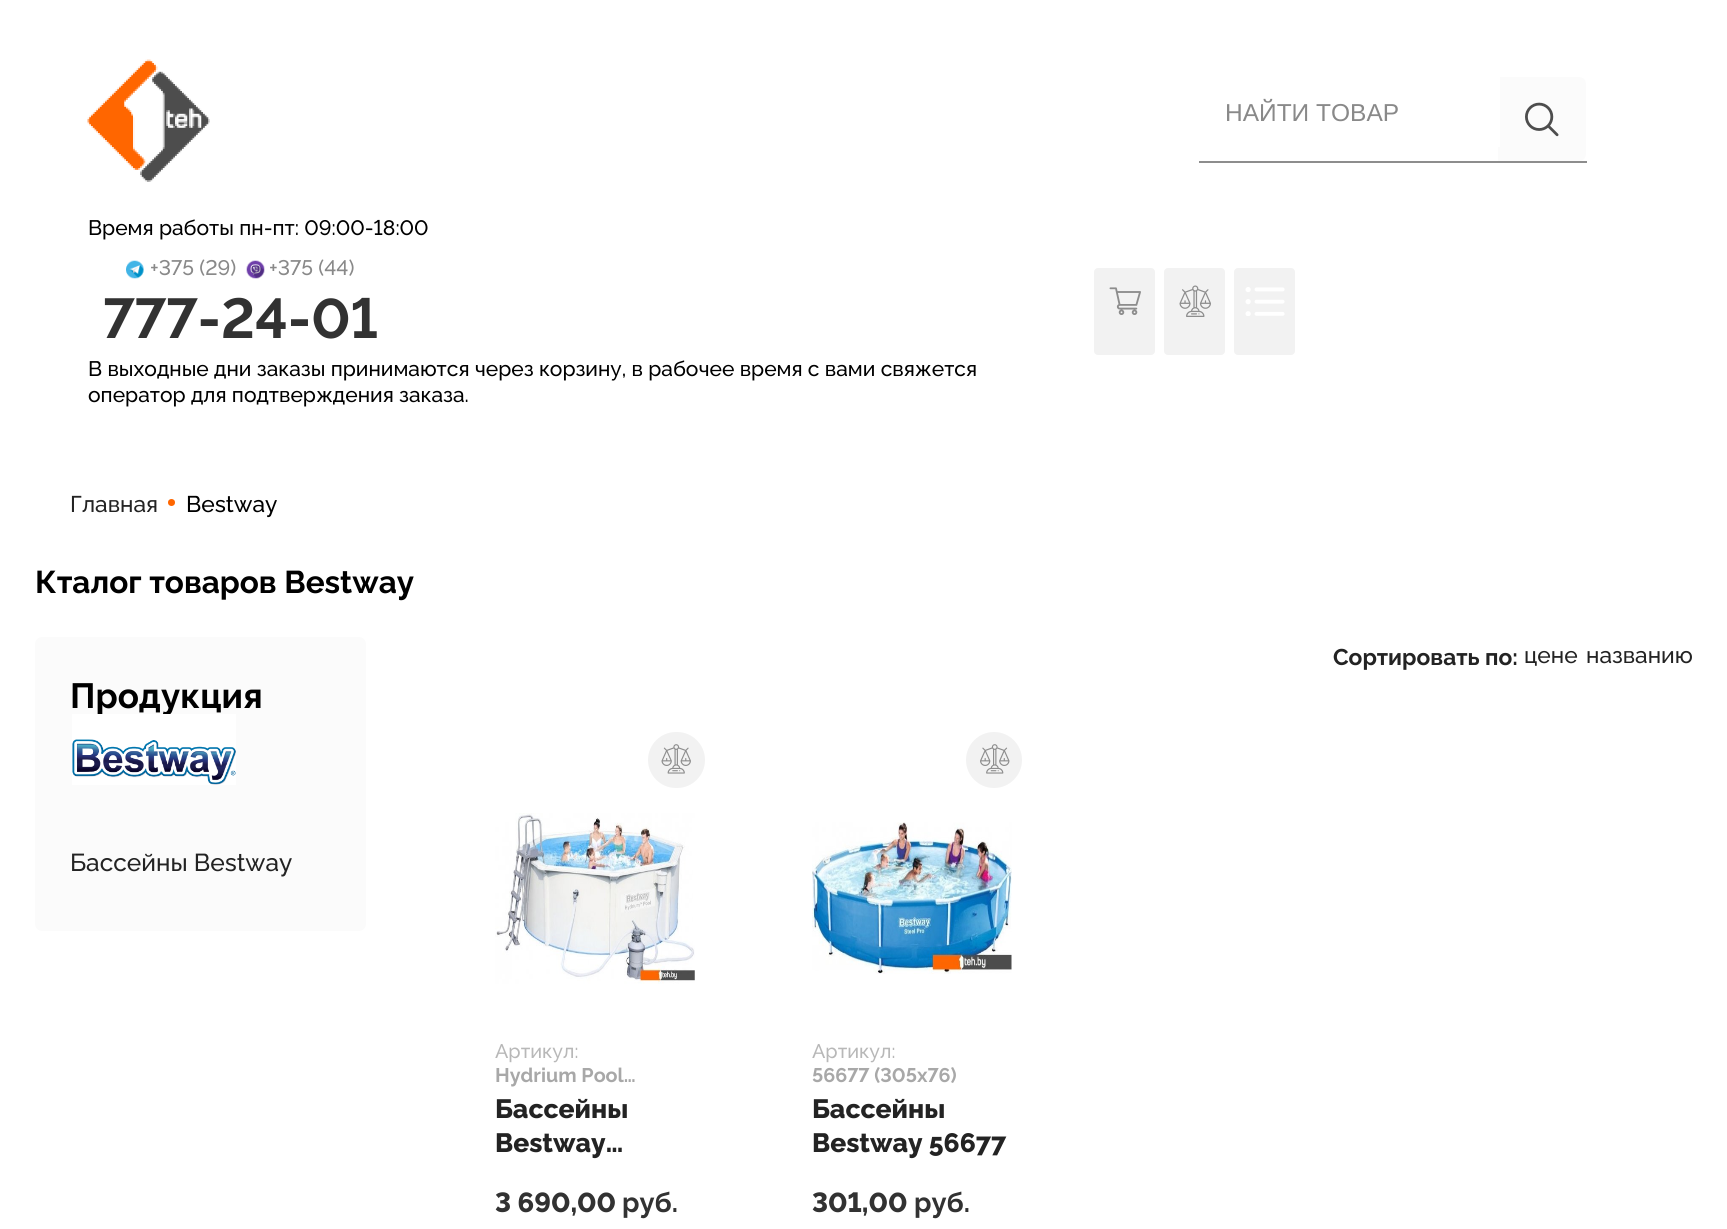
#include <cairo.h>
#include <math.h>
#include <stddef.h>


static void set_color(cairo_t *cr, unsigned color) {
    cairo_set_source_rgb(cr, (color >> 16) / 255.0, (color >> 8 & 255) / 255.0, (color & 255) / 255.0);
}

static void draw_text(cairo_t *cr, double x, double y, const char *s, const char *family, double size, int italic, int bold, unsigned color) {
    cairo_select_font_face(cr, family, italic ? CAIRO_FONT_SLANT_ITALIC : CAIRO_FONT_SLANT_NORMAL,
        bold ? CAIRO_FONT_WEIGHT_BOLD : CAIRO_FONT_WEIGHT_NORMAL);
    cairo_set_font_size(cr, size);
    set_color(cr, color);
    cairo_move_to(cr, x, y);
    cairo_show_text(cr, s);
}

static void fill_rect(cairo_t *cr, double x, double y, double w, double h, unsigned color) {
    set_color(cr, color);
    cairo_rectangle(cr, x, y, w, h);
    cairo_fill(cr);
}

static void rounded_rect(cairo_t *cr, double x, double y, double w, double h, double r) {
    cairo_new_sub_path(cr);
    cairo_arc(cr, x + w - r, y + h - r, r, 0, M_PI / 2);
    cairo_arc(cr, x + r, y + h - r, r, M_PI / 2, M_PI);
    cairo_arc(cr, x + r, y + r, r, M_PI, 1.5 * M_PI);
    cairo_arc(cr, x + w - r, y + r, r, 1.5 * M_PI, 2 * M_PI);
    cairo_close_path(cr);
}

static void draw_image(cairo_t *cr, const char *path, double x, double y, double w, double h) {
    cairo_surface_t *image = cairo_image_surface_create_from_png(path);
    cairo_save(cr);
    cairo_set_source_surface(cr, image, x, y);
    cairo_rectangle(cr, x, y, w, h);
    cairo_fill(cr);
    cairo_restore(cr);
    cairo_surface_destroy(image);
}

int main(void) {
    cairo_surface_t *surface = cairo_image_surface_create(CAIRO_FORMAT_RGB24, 1727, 1229);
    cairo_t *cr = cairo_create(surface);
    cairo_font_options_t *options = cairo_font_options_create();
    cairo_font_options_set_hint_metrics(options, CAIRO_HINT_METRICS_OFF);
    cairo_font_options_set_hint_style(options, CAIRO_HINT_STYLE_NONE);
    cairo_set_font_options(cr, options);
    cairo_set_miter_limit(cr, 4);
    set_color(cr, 0xFFFFFF);
    cairo_paint(cr);
    draw_image(cr, "assets/img1.png", 87, 59, 123, 123);
    fill_rect(cr, 1199, 161, 388, 2, 0x8D8D8D);
    set_color(cr, 0xFBFBFB);
    cairo_new_path(cr);
    cairo_move_to(cr, 1498, 77);
    cairo_line_to(cr, 1579, 77);
    cairo_curve_to(cr, 1583, 77, 1586, 80, 1586, 84);
    cairo_line_to(cr, 1586, 154);
    cairo_curve_to(cr, 1586, 158, 1583, 161, 1579, 161);
    cairo_line_to(cr, 1498, 161);
    cairo_close_path(cr);
    cairo_fill(cr);
    set_color(cr, 0xFFFFFF);
    cairo_new_path(cr);
    cairo_move_to(cr, 1206, 77);
    cairo_line_to(cr, 1500, 77);
    cairo_line_to(cr, 1500, 147);
    cairo_line_to(cr, 1206, 147);
    cairo_curve_to(cr, 1202, 147, 1199, 144, 1199, 140);
    cairo_line_to(cr, 1199, 84);
    cairo_curve_to(cr, 1199, 80, 1202, 77, 1206, 77);
    cairo_close_path(cr);
    cairo_fill(cr);
    draw_text(cr, 1225, 121, "НАЙТИ ТОВАР", "Liberation Sans", 24.5, 0, 0, 0x898989);
    draw_image(cr, "assets/img2.png", 1525, 102, 34, 35);
    draw_text(cr, 88, 235, "Время работы пн-пт: 09:00-18:00", "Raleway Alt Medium", 21, 0, 0, 0x000000);
    draw_image(cr, "assets/img3.png", 126, 260, 18, 19);
    draw_text(cr, 150, 275, "+375 (29)", "Raleway Alt Medium", 21, 0, 0, 0x898989);
    draw_image(cr, "assets/img4.png", 246, 260, 19, 19);
    draw_text(cr, 269, 275, "+375 (44)", "Raleway Alt Medium", 21, 0, 0, 0x898989);
    draw_text(cr, 103, 338, "777-24-01", "Raleway Alt", 56, 0, 1, 0x323232);
    draw_text(cr, 88, 376, "В выходные дни заказы принимаются через корзину, в рабочее время с вами свяжется", "Raleway Medium", 21, 0, 0, 0x000000);
    draw_text(cr, 88, 402, "оператор для подтверждения заказа.", "Raleway Medium", 21, 0, 0, 0x000000);
    set_color(cr, 0xF2F2F2);
    rounded_rect(cr, 1094, 268, 61, 87, 4);
    cairo_fill(cr);
    draw_image(cr, "assets/img5.png", 1109, 287, 32, 28);
    rounded_rect(cr, 1164, 268, 61, 87, 4);
    cairo_fill(cr);
    draw_image(cr, "assets/img6.png", 1179, 285, 32, 32);
    rounded_rect(cr, 1234, 268, 61, 87, 4);
    cairo_fill(cr);
    draw_image(cr, "assets/img7.png", 1245, 287, 40, 29);
    draw_text(cr, 70, 512, "Главная", "Raleway Medium", 22.75, 0, 0, 0x232323);
    set_color(cr, 0xFF6600);
    cairo_new_path(cr);
    cairo_arc(cr, 171.5, 502.5, 3.5, 0, 2 * M_PI);
    cairo_fill(cr);
    draw_text(cr, 186, 512, "Bestway", "Raleway Medium", 22.75, 0, 0, 0x000000);
    draw_text(cr, 35, 593, "Кталог товаров Bestway", "Raleway", 31.5, 0, 1, 0x000000);
    set_color(cr, 0xFBFBFB);
    rounded_rect(cr, 35, 637, 331, 294, 7);
    cairo_fill(cr);
    draw_text(cr, 70, 708, "Продукция", "Raleway", 35, 0, 1, 0x000000);
    draw_image(cr, "assets/img8.png", 72, 714, 164, 71);
    draw_text(cr, 70, 871, "Бассейны Bestway", "Raleway Medium", 24.5, 0, 0, 0x232323);
    draw_text(cr, 1333, 665, "Сортировать по:", "Raleway", 22.75, 0, 1, 0x232323);
    draw_text(cr, 1524, 663, "цене", "Raleway Medium", 22.75, 0, 0, 0x232323);
    draw_text(cr, 1586, 663, "названию", "Raleway Medium", 22.75, 0, 0, 0x232323);
    set_color(cr, 0xF2F2F2);
    rounded_rect(cr, 648, 732, 57, 56, 28);
    cairo_fill(cr);
    draw_image(cr, "assets/img9.png", 661, 744, 30, 30);
    draw_image(cr, "assets/img10.png", 495, 813, 200, 171);
    draw_text(cr, 495, 1058, "Артикул:", "Raleway Medium", 19.75, 0, 0, 0xB8B8B8);
    draw_text(cr, 495, 1082, "Hydrium Pool…", "Raleway", 19.75, 0, 1, 0xA8A8A8);
    draw_text(cr, 495, 1118, "Бассейны", "Raleway ExtraBold", 26.5, 0, 0, 0x232323);
    draw_text(cr, 495, 1152, "Bestway…", "Raleway ExtraBold", 26.5, 0, 0, 0x232323);
    draw_text(cr, 495, 1212, "3 690,00", "Raleway Alt ExtraBold", 27.5, 0, 0, 0x323232);
    draw_text(cr, 622, 1212, "руб.", "Raleway", 27.5, 0, 1, 0x323232);
    set_color(cr, 0xF2F2F2);
    cairo_new_path(cr);
    cairo_arc(cr, 994, 760, 28, 0, 2 * M_PI);
    cairo_fill(cr);
    draw_image(cr, "assets/img11.png", 980, 744, 30, 30);
    draw_image(cr, "assets/img12.png", 812, 822, 200, 152);
    draw_text(cr, 812, 1058, "Артикул:", "Raleway Medium", 19.75, 0, 0, 0xB8B8B8);
    draw_text(cr, 812, 1082, "56677 (305x76)", "Raleway Alt", 19.75, 0, 1, 0xA8A8A8);
    draw_text(cr, 812, 1118, "Бассейны", "Raleway ExtraBold", 26.5, 0, 0, 0x232323);
    draw_text(cr, 812, 1152, "Bestway 56677", "Raleway ExtraBold", 26.5, 0, 0, 0x232323);
    draw_text(cr, 812, 1212, "301,00", "Raleway Alt ExtraBold", 27.5, 0, 0, 0x323232);
    draw_text(cr, 914, 1212, "руб.", "Raleway", 27.5, 0, 1, 0x323232);
    cairo_surface_write_to_png(surface, "output.png");
    cairo_font_options_destroy(options);
    cairo_destroy(cr);
    cairo_surface_destroy(surface);
    return 0;
}
